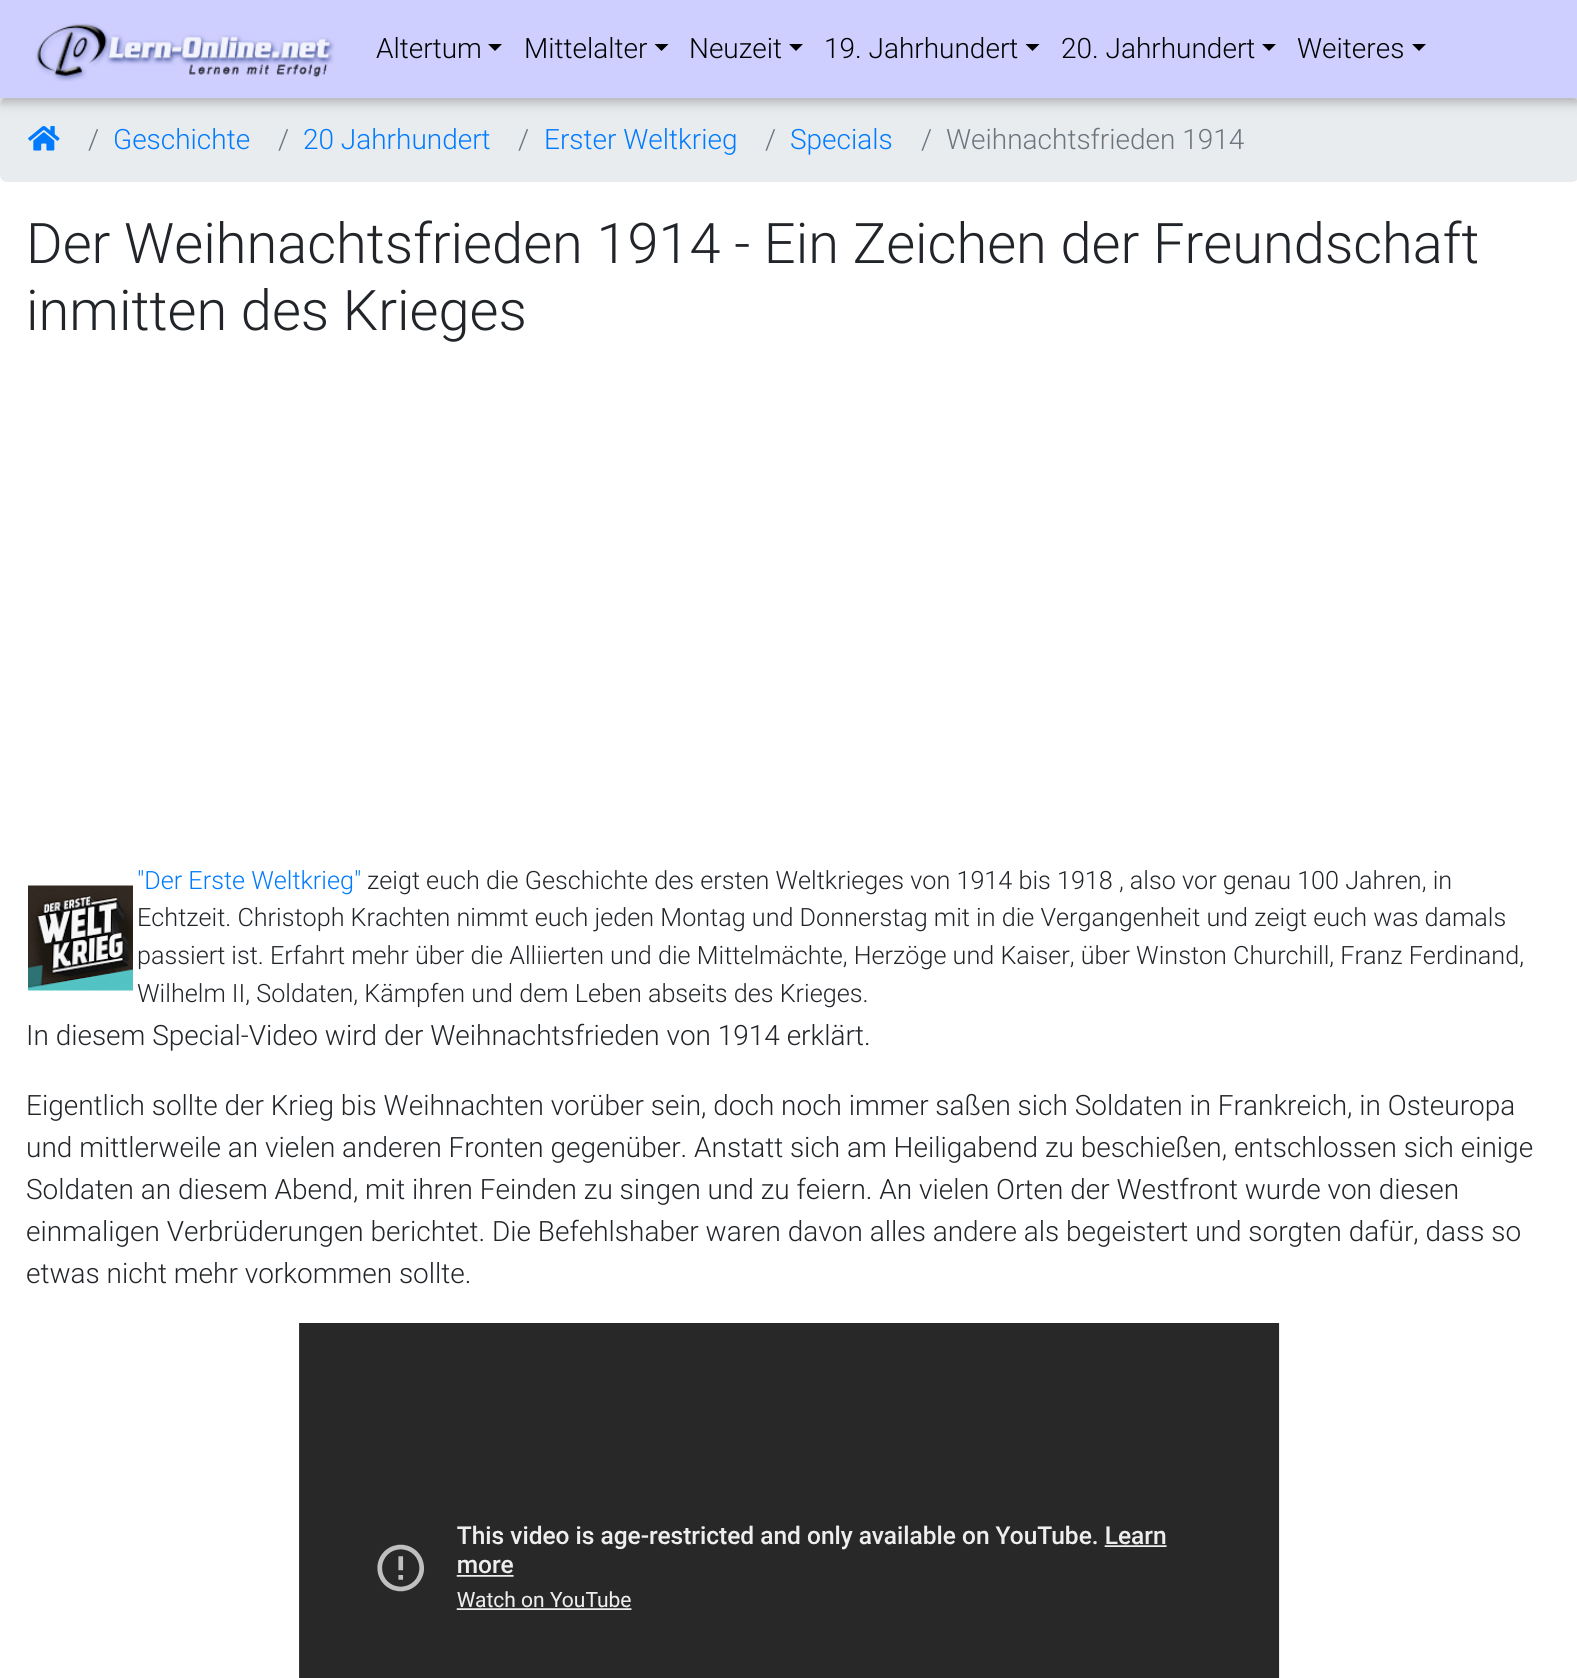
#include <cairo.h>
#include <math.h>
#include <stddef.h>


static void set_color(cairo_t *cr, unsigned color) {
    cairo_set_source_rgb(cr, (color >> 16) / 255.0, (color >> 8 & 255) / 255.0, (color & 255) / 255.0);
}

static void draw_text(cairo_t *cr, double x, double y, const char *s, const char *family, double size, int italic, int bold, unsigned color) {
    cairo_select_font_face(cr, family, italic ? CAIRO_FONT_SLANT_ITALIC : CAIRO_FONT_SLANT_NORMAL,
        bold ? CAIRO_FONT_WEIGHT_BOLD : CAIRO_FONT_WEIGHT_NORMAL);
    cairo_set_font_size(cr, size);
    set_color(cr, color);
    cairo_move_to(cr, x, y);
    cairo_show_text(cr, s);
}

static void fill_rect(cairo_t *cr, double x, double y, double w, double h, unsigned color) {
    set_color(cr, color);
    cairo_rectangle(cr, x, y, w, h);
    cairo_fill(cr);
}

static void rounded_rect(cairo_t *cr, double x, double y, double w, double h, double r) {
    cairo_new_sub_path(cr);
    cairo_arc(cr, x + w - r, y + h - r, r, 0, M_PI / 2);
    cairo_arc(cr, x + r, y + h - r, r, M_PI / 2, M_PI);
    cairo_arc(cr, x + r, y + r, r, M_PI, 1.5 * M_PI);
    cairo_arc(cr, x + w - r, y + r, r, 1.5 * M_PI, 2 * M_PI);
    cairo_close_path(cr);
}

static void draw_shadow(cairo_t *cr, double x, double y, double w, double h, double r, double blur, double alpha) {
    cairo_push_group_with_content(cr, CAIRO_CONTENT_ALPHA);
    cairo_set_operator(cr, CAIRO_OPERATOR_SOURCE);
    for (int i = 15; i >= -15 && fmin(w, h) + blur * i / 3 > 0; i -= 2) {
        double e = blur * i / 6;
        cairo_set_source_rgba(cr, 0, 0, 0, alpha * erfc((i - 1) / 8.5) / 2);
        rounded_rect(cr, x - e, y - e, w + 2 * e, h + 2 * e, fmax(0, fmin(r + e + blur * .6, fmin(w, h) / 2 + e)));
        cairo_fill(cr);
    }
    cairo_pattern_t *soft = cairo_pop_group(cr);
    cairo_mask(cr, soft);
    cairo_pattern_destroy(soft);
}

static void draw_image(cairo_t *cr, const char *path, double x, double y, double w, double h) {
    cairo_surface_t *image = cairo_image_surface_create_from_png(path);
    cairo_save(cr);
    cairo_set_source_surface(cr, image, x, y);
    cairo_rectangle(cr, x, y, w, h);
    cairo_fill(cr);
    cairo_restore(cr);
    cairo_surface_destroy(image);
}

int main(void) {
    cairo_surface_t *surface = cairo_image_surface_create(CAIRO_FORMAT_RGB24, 1577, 1678);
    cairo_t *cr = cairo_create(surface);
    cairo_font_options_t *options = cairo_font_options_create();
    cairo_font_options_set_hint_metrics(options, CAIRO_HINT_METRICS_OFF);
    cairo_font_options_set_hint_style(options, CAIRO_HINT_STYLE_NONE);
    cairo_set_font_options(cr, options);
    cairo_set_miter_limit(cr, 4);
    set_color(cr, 0xFFFFFF);
    cairo_paint(cr);
    set_color(cr, 0xE9ECEF);
    rounded_rect(cr, 0, 98, 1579, 84, 7);
    cairo_fill(cr);
    draw_image(cr, "assets/img2.png", 28, 126, 32, 25);
    set_color(cr, 0x000000);
    draw_shadow(cr, 0, 4, 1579, 98, 0, 9, 0.12);
    draw_shadow(cr, 0, 4, 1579, 98, 0, 4.5, 0.16);
    fill_rect(cr, 0, 0, 1577, 98, 0xCECFFF);
    draw_image(cr, "assets/img1.png", 35, 23, 300, 59);
    draw_text(cr, 376, 58, "Altertum", "Roboto Light", 28, 0, 0, 0x000000);
    cairo_new_path(cr);
    cairo_move_to(cr, 488, 44);
    cairo_line_to(cr, 502, 44);
    cairo_line_to(cr, 495, 51);
    cairo_close_path(cr);
    cairo_fill(cr);
    draw_text(cr, 524, 58, "Mittelalter", "Roboto Light", 28, 0, 0, 0x000000);
    cairo_new_path(cr);
    cairo_move_to(cr, 654.5, 44);
    cairo_line_to(cr, 668.5, 44);
    cairo_line_to(cr, 661.5, 51);
    cairo_close_path(cr);
    cairo_fill(cr);
    draw_text(cr, 689, 58, "Neuzeit", "Roboto Light", 28, 0, 0, 0x000000);
    cairo_new_path(cr);
    cairo_move_to(cr, 789, 44);
    cairo_line_to(cr, 803, 44);
    cairo_line_to(cr, 796, 51);
    cairo_close_path(cr);
    cairo_fill(cr);
    draw_text(cr, 824, 58, "19. Jahrhundert", "Roboto Light", 28, 0, 0, 0x000000);
    cairo_new_path(cr);
    cairo_move_to(cr, 1025.5, 44);
    cairo_line_to(cr, 1039.5, 44);
    cairo_line_to(cr, 1032.5, 51);
    cairo_close_path(cr);
    cairo_fill(cr);
    draw_text(cr, 1061, 58, "20. Jahrhundert", "Roboto Light", 28, 0, 0, 0x000000);
    cairo_new_path(cr);
    cairo_move_to(cr, 1262, 44);
    cairo_line_to(cr, 1276, 44);
    cairo_line_to(cr, 1269, 51);
    cairo_close_path(cr);
    cairo_fill(cr);
    draw_text(cr, 1297, 58, "Weiteres", "Roboto Light", 28, 0, 0, 0x000000);
    cairo_new_path(cr);
    cairo_move_to(cr, 1412, 44);
    cairo_line_to(cr, 1426, 44);
    cairo_line_to(cr, 1419, 51);
    cairo_close_path(cr);
    cairo_fill(cr);
    draw_text(cr, 88, 149, "/", "Roboto Light", 28, 0, 0, 0x6C757D);
    draw_text(cr, 113, 149, "Geschichte", "Roboto Light", 28, 0, 0, 0x007BFF);
    draw_text(cr, 278, 149, "/", "Roboto Light", 28, 0, 0, 0x6C757D);
    draw_text(cr, 303, 149, "20 Jahrhundert", "Roboto Light", 28, 0, 0, 0x007BFF);
    draw_text(cr, 518, 149, "/", "Roboto Light", 28, 0, 0, 0x6C757D);
    draw_text(cr, 544, 149, "Erster Weltkrieg", "Roboto Light", 28, 0, 0, 0x007BFF);
    draw_text(cr, 765, 149, "/", "Roboto Light", 28, 0, 0, 0x6C757D);
    draw_text(cr, 790, 149, "Specials", "Roboto Light", 28, 0, 0, 0x007BFF);
    draw_text(cr, 921, 149, "/", "Roboto Light", 28, 0, 0, 0x6C757D);
    draw_text(cr, 946, 149, "Weihnachtsfrieden 1914", "Roboto Light", 28, 0, 0, 0x6C757D);
    draw_text(cr, 26, 263, "Der Weihnachtsfrieden 1914 - Ein Zeichen der Freundschaft", "Roboto Light", 56, 0, 0, 0x212529);
    draw_text(cr, 26, 330, "inmitten des Krieges", "Roboto Light", 56, 0, 0, 0x212529);
    draw_image(cr, "assets/img3.png", 28, 885, 105, 106);
    draw_text(cr, 137, 889, "\"Der Erste Weltkrieg\"", "Roboto Light", 25.2, 0, 0, 0x007BFF);
    draw_text(cr, 367, 889, "zeigt euch die Geschichte des ersten Weltkrieges von 1914 bis 1918 , also vor genau 100 Jahren, in", "Roboto Light", 25.2, 0, 0, 0x212529);
    draw_text(cr, 137, 926, "Echtzeit. Christoph Krachten nimmt euch jeden Montag und Donnerstag mit in die Vergangenheit und zeigt euch was damals", "Roboto Light", 25.2, 0, 0, 0x212529);
    draw_text(cr, 137, 964, "passiert ist. Erfahrt mehr über die Alliierten und die Mittelmächte, Herzöge und Kaiser, über Winston Churchill, Franz Ferdinand,", "Roboto Light", 25.2, 0, 0, 0x212529);
    draw_text(cr, 137, 1002, "Wilhelm II, Soldaten, Kämpfen und dem Leben abseits des Krieges.", "Roboto Light", 25.2, 0, 0, 0x212529);
    draw_text(cr, 26, 1045, "In diesem Special-Video wird der Weihnachtsfrieden von 1914 erklärt.", "Roboto Light", 28, 0, 0, 0x212529);
    draw_text(cr, 26, 1115, "Eigentlich sollte der Krieg bis Weihnachten vorüber sein, doch noch immer saßen sich Soldaten in Frankreich, in Osteuropa", "Roboto Light", 28, 0, 0, 0x212529);
    draw_text(cr, 26, 1157, "und mittlerweile an vielen anderen Fronten gegenüber. Anstatt sich am Heiligabend zu beschießen, entschlossen sich einige", "Roboto Light", 28, 0, 0, 0x212529);
    draw_text(cr, 26, 1199, "Soldaten an diesem Abend, mit ihren Feinden zu singen und zu feiern. An vielen Orten der Westfront wurde von diesen", "Roboto Light", 28, 0, 0, 0x212529);
    draw_text(cr, 26, 1241, "einmaligen Verbrüderungen berichtet. Die Befehlshaber waren davon alles andere als begeistert und sorgten dafür, dass so", "Roboto Light", 28, 0, 0, 0x212529);
    draw_text(cr, 26, 1283, "etwas nicht mehr vorkommen sollte.", "Roboto Light", 28, 0, 0, 0x212529);
    draw_image(cr, "assets/img4.png", 299, 1323, 981, 355);
    cairo_surface_write_to_png(surface, "output.png");
    cairo_font_options_destroy(options);
    cairo_destroy(cr);
    cairo_surface_destroy(surface);
    return 0;
}
